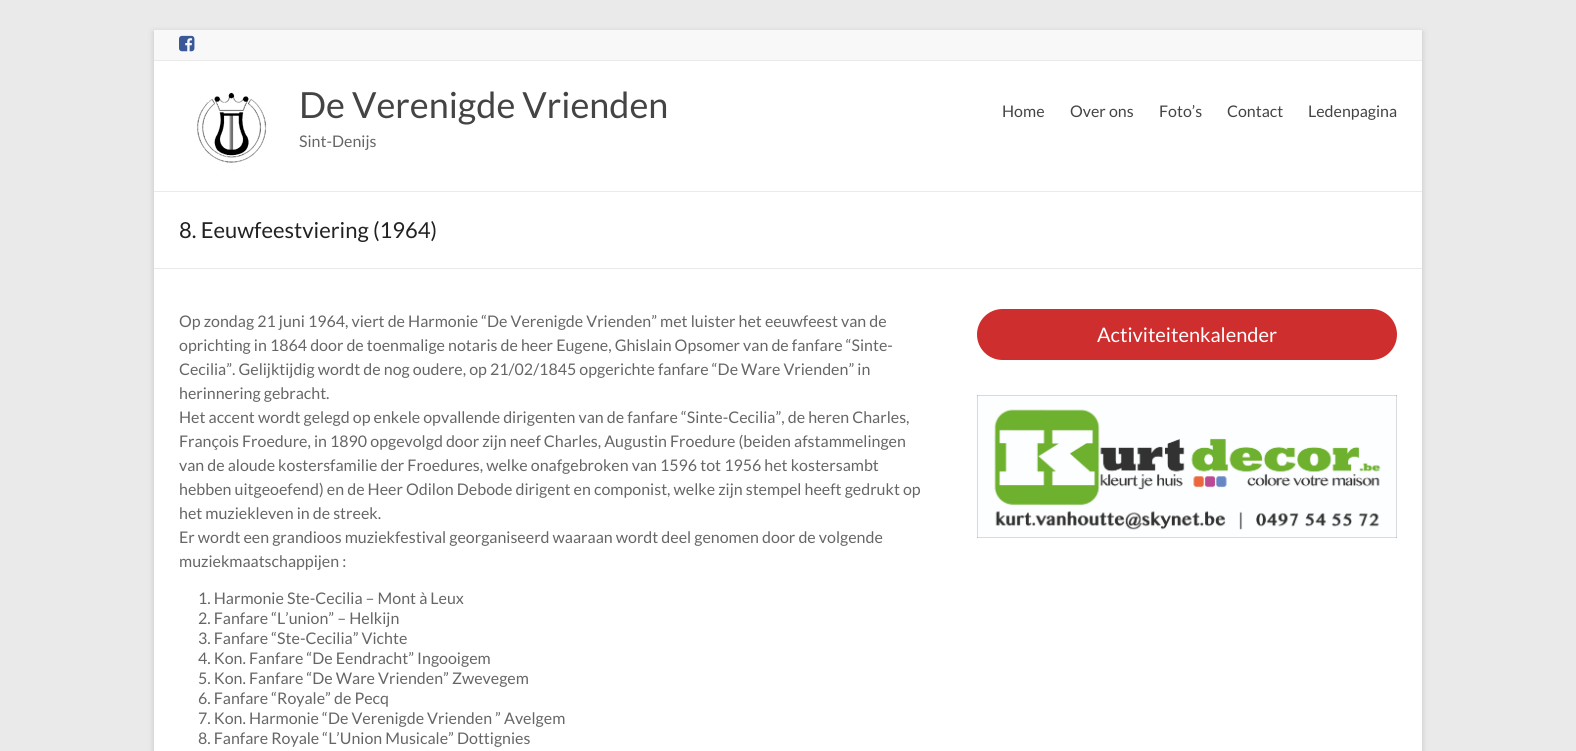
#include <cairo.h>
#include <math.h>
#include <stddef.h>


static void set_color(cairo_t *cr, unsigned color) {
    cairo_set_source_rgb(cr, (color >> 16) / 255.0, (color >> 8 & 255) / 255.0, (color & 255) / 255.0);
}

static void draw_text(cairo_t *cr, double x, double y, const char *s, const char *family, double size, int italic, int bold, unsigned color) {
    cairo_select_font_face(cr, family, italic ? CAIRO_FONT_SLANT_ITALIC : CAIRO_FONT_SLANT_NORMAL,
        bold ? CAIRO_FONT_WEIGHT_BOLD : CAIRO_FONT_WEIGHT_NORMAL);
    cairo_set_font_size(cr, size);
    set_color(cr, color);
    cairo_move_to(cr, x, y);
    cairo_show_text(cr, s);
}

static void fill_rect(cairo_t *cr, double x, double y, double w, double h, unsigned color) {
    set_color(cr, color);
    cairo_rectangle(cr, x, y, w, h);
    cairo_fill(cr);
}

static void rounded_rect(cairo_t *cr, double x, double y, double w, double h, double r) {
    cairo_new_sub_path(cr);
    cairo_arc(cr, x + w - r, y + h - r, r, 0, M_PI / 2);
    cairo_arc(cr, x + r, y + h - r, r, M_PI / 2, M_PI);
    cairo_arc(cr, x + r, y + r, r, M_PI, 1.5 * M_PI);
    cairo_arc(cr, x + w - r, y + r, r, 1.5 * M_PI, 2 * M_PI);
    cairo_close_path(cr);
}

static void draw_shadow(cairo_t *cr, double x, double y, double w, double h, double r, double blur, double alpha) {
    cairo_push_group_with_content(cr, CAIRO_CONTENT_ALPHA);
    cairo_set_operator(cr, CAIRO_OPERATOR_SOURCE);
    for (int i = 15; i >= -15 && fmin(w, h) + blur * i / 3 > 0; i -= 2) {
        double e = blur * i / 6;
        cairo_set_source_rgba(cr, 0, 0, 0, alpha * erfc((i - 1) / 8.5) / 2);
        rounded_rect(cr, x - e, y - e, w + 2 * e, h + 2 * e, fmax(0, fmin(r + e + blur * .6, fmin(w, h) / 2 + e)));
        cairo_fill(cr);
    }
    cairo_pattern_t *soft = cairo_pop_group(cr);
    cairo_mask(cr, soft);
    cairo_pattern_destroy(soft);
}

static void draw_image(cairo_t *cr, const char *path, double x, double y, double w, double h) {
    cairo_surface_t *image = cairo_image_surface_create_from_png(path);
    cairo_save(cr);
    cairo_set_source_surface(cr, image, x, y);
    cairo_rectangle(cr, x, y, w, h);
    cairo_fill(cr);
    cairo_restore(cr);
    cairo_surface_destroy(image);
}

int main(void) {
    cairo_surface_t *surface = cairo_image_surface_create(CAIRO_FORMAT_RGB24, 1576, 751);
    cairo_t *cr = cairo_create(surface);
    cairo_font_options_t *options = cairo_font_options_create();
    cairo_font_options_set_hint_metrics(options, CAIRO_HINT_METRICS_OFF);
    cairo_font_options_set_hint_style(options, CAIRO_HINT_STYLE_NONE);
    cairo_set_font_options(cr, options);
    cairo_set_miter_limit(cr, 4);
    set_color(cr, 0xEAEAEA);
    cairo_paint(cr);
    set_color(cr, 0x646464);
    draw_shadow(cr, 154, 32, 1268, 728, 0, 3, 0.3);
    fill_rect(cr, 154, 61, 1268, 690, 0xFFFFFF);
    fill_rect(cr, 154, 30, 1268, 30, 0xF8F8F8);
    fill_rect(cr, 154, 60, 1268, 1, 0xEAEAEA);
    draw_image(cr, "assets/img1.png", 179, 35, 16, 17);
    fill_rect(cr, 154, 191, 1268, 1, 0xEAEAEA);
    draw_image(cr, "assets/img2.png", 196, 92, 76, 78);
    draw_text(cr, 299, 118, "De Verenigde Vrienden", "Lato", 36, 0, 0, 0x444444);
    draw_text(cr, 299, 147, "Sint-Denijs", "Lato", 16, 0, 0, 0x666666);
    draw_text(cr, 1002, 117, "Home", "Lato", 16, 0, 0, 0x444444);
    draw_text(cr, 1070, 117, "Over ons", "Lato", 16, 0, 0, 0x444444);
    draw_text(cr, 1159, 117, "Foto’s", "Lato", 16, 0, 0, 0x444444);
    draw_text(cr, 1227, 117, "Contact", "Lato", 16, 0, 0, 0x444444);
    draw_text(cr, 1308, 117, "Ledenpagina", "Lato", 16, 0, 0, 0x444444);
    fill_rect(cr, 154, 268, 1268, 1, 0xEAEAEA);
    draw_text(cr, 179, 238, "8. Eeuwfeestviering (1964)", "Lato", 22, 0, 0, 0x222222);
    draw_text(cr, 179, 327, "Op zondag 21 juni 1964, viert de Harmonie “De Verenigde Vrienden” met luister het eeuwfeest van de", "Lato", 16, 0, 0, 0x666666);
    draw_text(cr, 179, 351, "oprichting in 1864 door de toenmalige notaris de heer Eugene, Ghislain Opsomer van de fanfare “Sinte-", "Lato", 16, 0, 0, 0x666666);
    draw_text(cr, 179, 375, "Cecilia”. Gelijktijdig wordt de nog oudere, op 21/02/1845 opgerichte fanfare “De Ware Vrienden” in", "Lato", 16, 0, 0, 0x666666);
    draw_text(cr, 179, 399, "herinnering gebracht.", "Lato", 16, 0, 0, 0x666666);
    draw_text(cr, 179, 423, "Het accent wordt gelegd op enkele opvallende dirigenten van de fanfare “Sinte-Cecilia”, de heren Charles,", "Lato", 16, 0, 0, 0x666666);
    draw_text(cr, 179, 447, "François Froedure, in 1890 opgevolgd door zijn neef Charles, Augustin Froedure (beiden afstammelingen", "Lato", 16, 0, 0, 0x666666);
    draw_text(cr, 179, 471, "van de aloude kostersfamilie der Froedures, welke onafgebroken van 1596 tot 1956 het kostersambt", "Lato", 16, 0, 0, 0x666666);
    draw_text(cr, 179, 495, "hebben uitgeoefend) en de Heer Odilon Debode dirigent en componist, welke zijn stempel heeft gedrukt op", "Lato", 16, 0, 0, 0x666666);
    draw_text(cr, 179, 519, "het muziekleven in de streek.", "Lato", 16, 0, 0, 0x666666);
    draw_text(cr, 179, 543, "Er wordt een grandioos muziekfestival georganiseerd waaraan wordt deel genomen door de volgende", "Lato", 16, 0, 0, 0x666666);
    draw_text(cr, 179, 567, "muziekmaatschappijen :", "Lato", 16, 0, 0, 0x666666);
    draw_text(cr, 198, 604, "1. Harmonie Ste-Cecilia – Mont à Leux", "Lato", 16, 0, 0, 0x666666);
    draw_text(cr, 198, 624, "2. Fanfare “L’union” – Helkijn", "Lato", 16, 0, 0, 0x666666);
    draw_text(cr, 198, 644, "3. Fanfare “Ste-Cecilia” Vichte", "Lato", 16, 0, 0, 0x666666);
    draw_text(cr, 198, 664, "4. Kon. Fanfare “De Eendracht” Ingooigem", "Lato", 16, 0, 0, 0x666666);
    draw_text(cr, 198, 684, "5. Kon. Fanfare “De Ware Vrienden” Zwevegem", "Lato", 16, 0, 0, 0x666666);
    draw_text(cr, 198, 704, "6. Fanfare “Royale” de Pecq", "Lato", 16, 0, 0, 0x666666);
    draw_text(cr, 198, 724, "7. Kon. Harmonie “De Verenigde Vrienden ” Avelgem", "Lato", 16, 0, 0, 0x666666);
    draw_text(cr, 198, 744, "8. Fanfare Royale “L’Union Musicale” Dottignies", "Lato", 16, 0, 0, 0x666666);
    set_color(cr, 0xCF2E2E);
    rounded_rect(cr, 977, 309, 420, 51, 25.5);
    cairo_fill(cr);
    draw_text(cr, 1097, 342, "Activiteitenkalender", "Lato", 20, 0, 0, 0xFFFFFF);
    draw_image(cr, "assets/img3.png", 977, 395, 420, 143);
    cairo_surface_write_to_png(surface, "output.png");
    cairo_font_options_destroy(options);
    cairo_destroy(cr);
    cairo_surface_destroy(surface);
    return 0;
}
